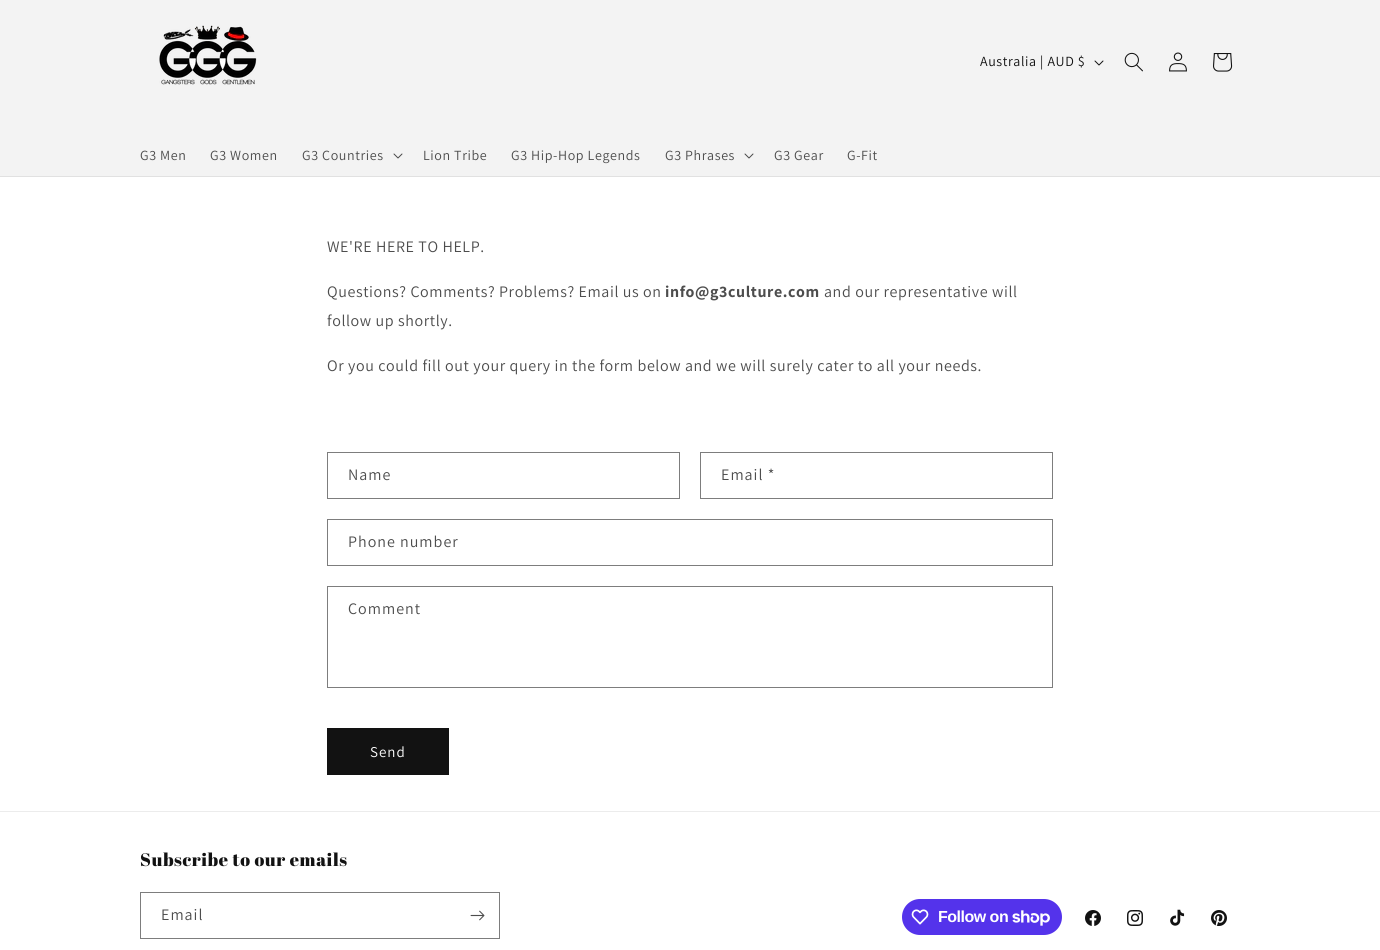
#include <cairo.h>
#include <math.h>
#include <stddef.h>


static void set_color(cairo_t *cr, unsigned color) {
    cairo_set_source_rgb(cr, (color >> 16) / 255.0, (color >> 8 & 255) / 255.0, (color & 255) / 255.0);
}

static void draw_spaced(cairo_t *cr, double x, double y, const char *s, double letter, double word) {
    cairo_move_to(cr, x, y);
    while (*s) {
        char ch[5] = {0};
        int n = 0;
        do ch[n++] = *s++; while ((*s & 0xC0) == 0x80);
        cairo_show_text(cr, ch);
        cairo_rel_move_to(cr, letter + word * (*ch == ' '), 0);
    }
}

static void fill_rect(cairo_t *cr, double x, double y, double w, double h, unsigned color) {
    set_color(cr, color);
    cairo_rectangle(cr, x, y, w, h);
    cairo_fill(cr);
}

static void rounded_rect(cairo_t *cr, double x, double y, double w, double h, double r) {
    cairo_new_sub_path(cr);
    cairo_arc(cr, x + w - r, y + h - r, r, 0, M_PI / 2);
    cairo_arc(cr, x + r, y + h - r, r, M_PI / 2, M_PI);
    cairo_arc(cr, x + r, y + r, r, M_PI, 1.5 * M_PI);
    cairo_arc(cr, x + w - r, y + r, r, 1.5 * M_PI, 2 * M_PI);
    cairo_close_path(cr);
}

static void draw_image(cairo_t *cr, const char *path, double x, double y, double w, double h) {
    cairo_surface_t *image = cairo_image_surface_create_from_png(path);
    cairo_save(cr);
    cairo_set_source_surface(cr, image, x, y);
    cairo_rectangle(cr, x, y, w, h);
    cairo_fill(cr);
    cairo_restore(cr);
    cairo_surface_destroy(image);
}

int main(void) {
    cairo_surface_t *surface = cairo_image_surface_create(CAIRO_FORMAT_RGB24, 1380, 950);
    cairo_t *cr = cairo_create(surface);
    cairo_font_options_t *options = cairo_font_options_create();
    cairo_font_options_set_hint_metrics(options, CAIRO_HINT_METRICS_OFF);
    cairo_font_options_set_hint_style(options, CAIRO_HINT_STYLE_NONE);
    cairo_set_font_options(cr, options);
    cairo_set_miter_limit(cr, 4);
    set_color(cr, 0xFFFFFF);
    cairo_paint(cr);
    fill_rect(cr, 0, 0, 1380, 176, 0xF3F3F3);
    fill_rect(cr, 0, 176, 1380, 1, 0xE1E1E1);
    draw_image(cr, "assets/img1.png", 159, 25, 98, 60);
    cairo_select_font_face(cr, "Assistant", CAIRO_FONT_SLANT_NORMAL, CAIRO_FONT_WEIGHT_NORMAL);
    cairo_set_font_size(cr, 14);
    set_color(cr, 0x121212);
    draw_spaced(cr, 980, 66, "Australia | AUD $", 0.6, 0);
    draw_image(cr, "assets/img2.png", 1094, 60, 10, 6);
    draw_image(cr, "assets/img3.png", 1124, 52, 19, 20);
    draw_image(cr, "assets/img4.png", 1169, 52, 18, 20);
    draw_image(cr, "assets/img5.png", 1213, 53, 20, 19);
    set_color(cr, 0x4D4D4D);
    draw_spaced(cr, 140, 160, "G3 Men", 0.6, 0);
    draw_spaced(cr, 210, 160, "G3 Women", 0.6, 0);
    draw_spaced(cr, 302, 160, "G3 Countries", 0.6, 0);
    draw_image(cr, "assets/img6.png", 393, 153, 10, 6);
    draw_spaced(cr, 423, 160, "Lion Tribe", 0.6, 0);
    draw_spaced(cr, 511, 160, "G3 Hip-Hop Legends", 0.6, 0);
    draw_spaced(cr, 665, 160, "G3 Phrases", 0.6, 0);
    draw_image(cr, "assets/img6.png", 744, 153, 10, 6);
    draw_spaced(cr, 774, 160, "G3 Gear", 0.6, 0);
    draw_spaced(cr, 847, 160, "G-Fit", 0.6, 0);
    cairo_set_font_size(cr, 16);
    draw_spaced(cr, 327, 252, "WE'RE HERE TO HELP.", 0.6, 0);
    draw_spaced(cr, 327, 297, "Questions? Comments? Problems? Email us on", 0.6, 0);
    cairo_select_font_face(cr, "Assistant", CAIRO_FONT_SLANT_NORMAL, CAIRO_FONT_WEIGHT_BOLD);
    draw_spaced(cr, 665, 297, "info@g3culture.com", 0.6, 0);
    cairo_select_font_face(cr, "Assistant", CAIRO_FONT_SLANT_NORMAL, CAIRO_FONT_WEIGHT_NORMAL);
    draw_spaced(cr, 824, 297, "and our representative will", 0.6, 0);
    draw_spaced(cr, 327, 326, "follow up shortly.", 0.6, 0);
    draw_spaced(cr, 327, 371, "Or you could fill out your query in the form below and we will surely cater to all your needs.", 0.6, 0);
    cairo_rectangle(cr, 327.5, 452.5, 352, 46);
    set_color(cr, 0x7D7D7D);
    cairo_set_line_width(cr, 1);
    cairo_stroke(cr);
    set_color(cr, 0x4D4D4D);
    draw_spaced(cr, 348, 480, "Name", 1, 0);
    cairo_rectangle(cr, 700.5, 452.5, 352, 46);
    set_color(cr, 0x7D7D7D);
    cairo_stroke(cr);
    set_color(cr, 0x4D4D4D);
    draw_spaced(cr, 721, 480, "Email *", 1, 0);
    cairo_rectangle(cr, 327.5, 519.5, 725, 46);
    set_color(cr, 0x7D7D7D);
    cairo_stroke(cr);
    set_color(cr, 0x4D4D4D);
    draw_spaced(cr, 348, 547, "Phone number", 1, 0);
    cairo_rectangle(cr, 327.5, 586.5, 725, 101);
    set_color(cr, 0x7D7D7D);
    cairo_stroke(cr);
    set_color(cr, 0x4D4D4D);
    draw_spaced(cr, 348, 614, "Comment", 1, 0);
    fill_rect(cr, 327, 728, 122, 47, 0x121212);
    cairo_set_font_size(cr, 15);
    set_color(cr, 0xFFFFFF);
    draw_spaced(cr, 370, 757, "Send", 1, 0);
    fill_rect(cr, 0, 811, 1380, 1, 0xECECEC);
    cairo_select_font_face(cr, "Abril Fatface", CAIRO_FONT_SLANT_NORMAL, CAIRO_FONT_WEIGHT_NORMAL);
    cairo_set_font_size(cr, 18);
    set_color(cr, 0x121212);
    draw_spaced(cr, 140, 866, "Subscribe to our emails", 0.6, 0);
    cairo_rectangle(cr, 140.5, 892.5, 359, 46);
    set_color(cr, 0x7D7D7D);
    cairo_stroke(cr);
    cairo_select_font_face(cr, "Assistant", CAIRO_FONT_SLANT_NORMAL, CAIRO_FONT_WEIGHT_NORMAL);
    cairo_set_font_size(cr, 16);
    set_color(cr, 0x4D4D4D);
    draw_spaced(cr, 161, 920, "Email", 1, 0);
    draw_image(cr, "assets/img7.png", 470, 910, 15, 11);
    set_color(cr, 0x5433EB);
    rounded_rect(cr, 902, 899, 160, 36, 18);
    cairo_fill(cr);
    draw_image(cr, "assets/img8.png", 911, 909, 18, 16);
    cairo_select_font_face(cr, "Liberation Sans", CAIRO_FONT_SLANT_NORMAL, CAIRO_FONT_WEIGHT_BOLD);
    set_color(cr, 0xFFFFFF);
    draw_spaced(cr, 938, 922, "Follow on", -0.5, 0);
    draw_image(cr, "assets/img9.png", 1012, 910, 38, 16);
    draw_image(cr, "assets/img10.png", 1085, 910, 16, 16);
    draw_image(cr, "assets/img11.png", 1127, 910, 16, 16);
    draw_image(cr, "assets/img12.png", 1170, 909, 15, 17);
    draw_image(cr, "assets/img13.png", 1211, 910, 16, 16);
    cairo_surface_write_to_png(surface, "output.png");
    cairo_font_options_destroy(options);
    cairo_destroy(cr);
    cairo_surface_destroy(surface);
    return 0;
}
